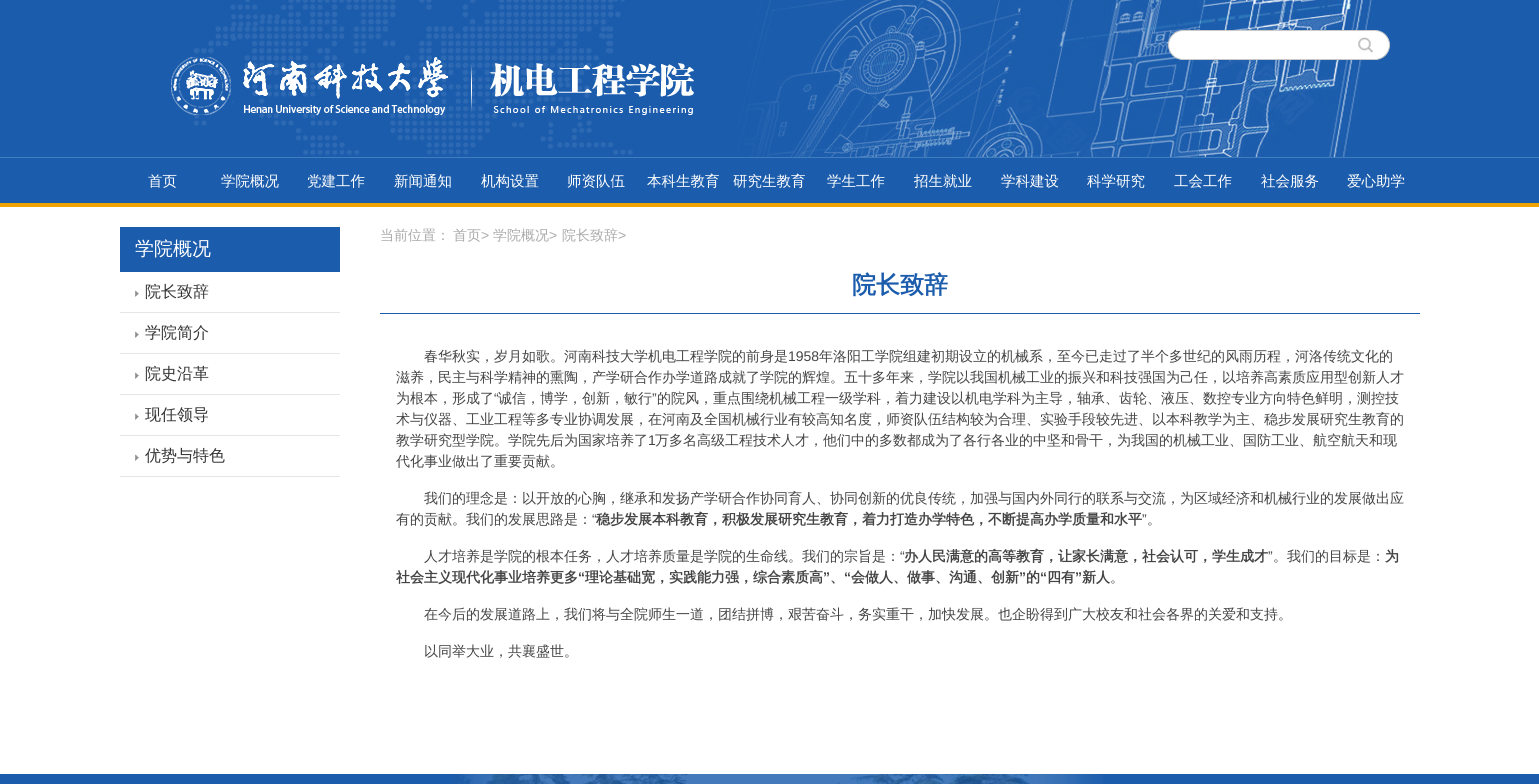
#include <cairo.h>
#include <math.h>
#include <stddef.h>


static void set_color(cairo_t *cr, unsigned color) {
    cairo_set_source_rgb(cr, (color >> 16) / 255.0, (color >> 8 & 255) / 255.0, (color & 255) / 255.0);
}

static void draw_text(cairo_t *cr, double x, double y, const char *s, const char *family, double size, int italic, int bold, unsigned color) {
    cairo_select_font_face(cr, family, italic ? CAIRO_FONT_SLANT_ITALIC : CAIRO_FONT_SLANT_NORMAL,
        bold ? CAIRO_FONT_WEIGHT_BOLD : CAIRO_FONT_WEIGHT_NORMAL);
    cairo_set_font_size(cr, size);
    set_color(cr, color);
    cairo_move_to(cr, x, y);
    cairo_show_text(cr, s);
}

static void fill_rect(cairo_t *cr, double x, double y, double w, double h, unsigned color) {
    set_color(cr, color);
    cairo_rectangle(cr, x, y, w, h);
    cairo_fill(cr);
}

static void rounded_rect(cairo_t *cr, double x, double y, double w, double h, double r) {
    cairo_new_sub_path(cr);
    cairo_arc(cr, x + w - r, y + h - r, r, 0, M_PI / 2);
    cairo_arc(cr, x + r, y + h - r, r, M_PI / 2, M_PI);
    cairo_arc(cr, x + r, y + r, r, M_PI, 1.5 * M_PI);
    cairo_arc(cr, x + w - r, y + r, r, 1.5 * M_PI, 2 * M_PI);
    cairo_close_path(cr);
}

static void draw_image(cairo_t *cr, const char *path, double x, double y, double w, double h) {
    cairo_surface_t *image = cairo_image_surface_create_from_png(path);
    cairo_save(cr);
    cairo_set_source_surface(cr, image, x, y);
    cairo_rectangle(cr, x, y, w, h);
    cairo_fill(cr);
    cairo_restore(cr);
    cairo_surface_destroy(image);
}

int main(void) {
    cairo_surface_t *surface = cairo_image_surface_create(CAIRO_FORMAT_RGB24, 1539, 784);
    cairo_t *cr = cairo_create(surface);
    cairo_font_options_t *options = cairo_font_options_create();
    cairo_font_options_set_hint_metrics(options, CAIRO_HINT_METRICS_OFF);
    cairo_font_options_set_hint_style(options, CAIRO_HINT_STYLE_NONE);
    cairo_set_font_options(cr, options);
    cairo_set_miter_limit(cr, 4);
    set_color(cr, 0xFFFFFF);
    cairo_paint(cr);
    fill_rect(cr, 0, 0, 1539, 157, 0x1B5CAC);
    draw_image(cr, "assets/img1.png", 171, 0, 1202, 157);
    set_color(cr, 0xFFFFFF);
    rounded_rect(cr, 1168.5, 30.5, 221, 29, 14.5);
    cairo_fill_preserve(cr);
    set_color(cr, 0xC9C9C9);
    cairo_set_line_width(cr, 1);
    cairo_stroke(cr);
    draw_image(cr, "assets/img2.png", 1358, 37, 15, 16);
    fill_rect(cr, 0, 158, 1539, 45, 0x1B5CAC);
    fill_rect(cr, 0, 157, 1539, 1, 0x417EBF);
    fill_rect(cr, 0, 203, 1539, 4, 0xF0A300);
    draw_text(cr, 148, 186, "首页", "WenQuanYi Zen Hei Medium", 14.5, 0, 0, 0xFFFFFF);
    draw_text(cr, 221, 186, "学院概况", "WenQuanYi Zen Hei Medium", 14.5, 0, 0, 0xFFFFFF);
    draw_text(cr, 307, 186, "党建工作", "WenQuanYi Zen Hei Medium", 14.5, 0, 0, 0xFFFFFF);
    draw_text(cr, 394, 186, "新闻通知", "WenQuanYi Zen Hei Medium", 14.5, 0, 0, 0xFFFFFF);
    draw_text(cr, 481, 186, "机构设置", "WenQuanYi Zen Hei Medium", 14.5, 0, 0, 0xFFFFFF);
    draw_text(cr, 567, 186, "师资队伍", "WenQuanYi Zen Hei Medium", 14.5, 0, 0, 0xFFFFFF);
    draw_text(cr, 647, 186, "本科生教育", "WenQuanYi Zen Hei Medium", 14.5, 0, 0, 0xFFFFFF);
    draw_text(cr, 733, 186, "研究生教育", "WenQuanYi Zen Hei Medium", 14.5, 0, 0, 0xFFFFFF);
    draw_text(cr, 827, 186, "学生工作", "WenQuanYi Zen Hei Medium", 14.5, 0, 0, 0xFFFFFF);
    draw_text(cr, 914, 186, "招生就业", "WenQuanYi Zen Hei Medium", 14.5, 0, 0, 0xFFFFFF);
    draw_text(cr, 1001, 186, "学科建设", "WenQuanYi Zen Hei Medium", 14.5, 0, 0, 0xFFFFFF);
    draw_text(cr, 1087, 186, "科学研究", "WenQuanYi Zen Hei Medium", 14.5, 0, 0, 0xFFFFFF);
    draw_text(cr, 1174, 186, "工会工作", "WenQuanYi Zen Hei Medium", 14.5, 0, 0, 0xFFFFFF);
    draw_text(cr, 1261, 186, "社会服务", "WenQuanYi Zen Hei Medium", 14.5, 0, 0, 0xFFFFFF);
    draw_text(cr, 1347, 186, "爱心助学", "WenQuanYi Zen Hei Medium", 14.5, 0, 0, 0xFFFFFF);
    fill_rect(cr, 120, 227, 220, 45, 0x1B5CAC);
    draw_text(cr, 135, 255, "学院概况", "WenQuanYi Zen Hei Medium", 19, 0, 0, 0xFFFFFF);
    draw_image(cr, "assets/img3.png", 135, 290, 4, 7);
    fill_rect(cr, 120, 312, 220, 1, 0xE6E6E6);
    draw_text(cr, 145, 297, "院长致辞", "WenQuanYi Zen Hei Medium", 16, 0, 0, 0x333333);
    draw_image(cr, "assets/img3.png", 135, 331, 4, 7);
    fill_rect(cr, 120, 353, 220, 1, 0xE6E6E6);
    draw_text(cr, 145, 338, "学院简介", "WenQuanYi Zen Hei Medium", 16, 0, 0, 0x333333);
    draw_image(cr, "assets/img3.png", 135, 372, 4, 7);
    fill_rect(cr, 120, 394, 220, 1, 0xE6E6E6);
    draw_text(cr, 145, 379, "院史沿革", "WenQuanYi Zen Hei Medium", 16, 0, 0, 0x333333);
    draw_image(cr, "assets/img3.png", 135, 413, 4, 7);
    fill_rect(cr, 120, 435, 220, 1, 0xE6E6E6);
    draw_text(cr, 145, 420, "现任领导", "WenQuanYi Zen Hei Medium", 16, 0, 0, 0x333333);
    draw_image(cr, "assets/img3.png", 135, 454, 4, 7);
    fill_rect(cr, 120, 476, 220, 1, 0xE6E6E6);
    draw_text(cr, 145, 461, "优势与特色", "WenQuanYi Zen Hei Medium", 16, 0, 0, 0x333333);
    draw_text(cr, 380, 240, "当前位置：", "WenQuanYi Zen Hei Medium", 14, 0, 0, 0xAAAAAA);
    draw_text(cr, 453, 240, "首页", "WenQuanYi Zen Hei Medium", 14, 0, 0, 0xAAAAAA);
    draw_text(cr, 481, 240, ">", "Liberation Sans", 14, 0, 0, 0xAAAAAA);
    draw_text(cr, 493, 240, "学院概况", "WenQuanYi Zen Hei Medium", 14, 0, 0, 0xAAAAAA);
    draw_text(cr, 549, 240, ">", "Liberation Sans", 14, 0, 0, 0xAAAAAA);
    draw_text(cr, 562, 240, "院长致辞", "WenQuanYi Zen Hei Medium", 14, 0, 0, 0xAAAAAA);
    draw_text(cr, 618, 240, ">", "Liberation Sans", 14, 0, 0, 0xAAAAAA);
    fill_rect(cr, 380, 313, 1040, 1, 0x1B5CAC);
    draw_text(cr, 852, 293, "院长致辞", "WenQuanYi Zen Hei", 24, 0, 1, 0x1B5CAC);
    draw_text(cr, 424, 361, "春华秋实，岁月如歌。河南科技大学机电工程学院的前身是", "WenQuanYi Zen Hei Medium", 14, 0, 0, 0x444444);
    draw_text(cr, 788, 361, "1958", "Liberation Sans", 14, 0, 0, 0x444444);
    draw_text(cr, 819, 361, "年洛阳工学院组建初期设立的机械系，至今已走过了半个多世纪的风雨历程，河洛传统文化的", "WenQuanYi Zen Hei Medium", 14, 0, 0, 0x444444);
    draw_text(cr, 396, 382, "滋养，民主与科学精神的熏陶，产学研合作办学道路成就了学院的辉煌。五十多年来，学院以我国机械工业的振兴和科技强国为己任，以培养高素质应用型创新人才", "WenQuanYi Zen Hei Medium", 14, 0, 0, 0x444444);
    draw_text(cr, 396, 403, "为根本，形成了", "WenQuanYi Zen Hei Medium", 14, 0, 0, 0x444444);
    draw_text(cr, 494, 403, "“", "Liberation Sans", 14, 0, 0, 0x444444);
    draw_text(cr, 498, 403, "诚信，博学，创新，敏行", "WenQuanYi Zen Hei Medium", 14, 0, 0, 0x444444);
    draw_text(cr, 652, 403, "”", "Liberation Sans", 14, 0, 0, 0x444444);
    draw_text(cr, 657, 403, "的院风，重点围绕机械工程一级学科，着力建设以机电学科为主导，轴承、齿轮、液压、数控专业方向特色鲜明，测控技", "WenQuanYi Zen Hei Medium", 14, 0, 0, 0x444444);
    draw_text(cr, 396, 424, "术与仪器、工业工程等多专业协调发展，在河南及全国机械行业有较高知名度，师资队伍结构较为合理、实验手段较先进、以本科教学为主、稳步发展研究生教育的", "WenQuanYi Zen Hei Medium", 14, 0, 0, 0x444444);
    draw_text(cr, 396, 445, "教学研究型学院。学院先后为国家培养了", "WenQuanYi Zen Hei Medium", 14, 0, 0, 0x444444);
    draw_text(cr, 648, 445, "1", "Liberation Sans", 14, 0, 0, 0x444444);
    draw_text(cr, 655, 445, "万多名高级工程技术人才，他们中的多数都成为了各行各业的中坚和骨干，为我国的机械工业、国防工业、航空航天和现", "WenQuanYi Zen Hei Medium", 14, 0, 0, 0x444444);
    draw_text(cr, 396, 466, "代化事业做出了重要贡献。", "WenQuanYi Zen Hei Medium", 14, 0, 0, 0x444444);
    draw_text(cr, 424, 503, "我们的理念是：以开放的心胸，继承和发扬产学研合作协同育人、协同创新的优良传统，加强与国内外同行的联系与交流，为区域经济和机械行业的发展做出应", "WenQuanYi Zen Hei Medium", 14, 0, 0, 0x444444);
    draw_text(cr, 396, 524, "有的贡献。我们的发展思路是：", "WenQuanYi Zen Hei Medium", 14, 0, 0, 0x444444);
    draw_text(cr, 592, 524, "“", "Liberation Sans", 14, 0, 0, 0x444444);
    draw_text(cr, 596, 524, "稳步发展本科教育，积极发展研究生教育，着力打造办学特色，不断提高办学质量和水平", "WenQuanYi Zen Hei", 14, 0, 1, 0x444444);
    draw_text(cr, 1142, 524, "”", "Liberation Sans", 14, 0, 0, 0x444444);
    draw_text(cr, 1147, 524, "。", "WenQuanYi Zen Hei Medium", 14, 0, 0, 0x444444);
    draw_text(cr, 424, 561, "人才培养是学院的根本任务，人才培养质量是学院的生命线。我们的宗旨是：", "WenQuanYi Zen Hei Medium", 14, 0, 0, 0x444444);
    draw_text(cr, 900, 561, "“", "Liberation Sans", 14, 0, 0, 0x444444);
    draw_text(cr, 904, 561, "办人民满意的高等教育，让家长满意，社会认可，学生成才", "WenQuanYi Zen Hei", 14, 0, 1, 0x444444);
    draw_text(cr, 1268, 561, "”", "Liberation Sans", 14, 0, 0, 0x444444);
    draw_text(cr, 1273, 561, "。我们的目标是：", "WenQuanYi Zen Hei Medium", 14, 0, 0, 0x444444);
    draw_text(cr, 1385, 561, "为", "WenQuanYi Zen Hei", 14, 0, 1, 0x444444);
    draw_text(cr, 396, 582, "社会主义现代化事业培养更多", "WenQuanYi Zen Hei", 14, 0, 1, 0x444444);
    draw_text(cr, 578, 582, "“", "Liberation Sans", 14, 0, 1, 0x444444);
    draw_text(cr, 585, 582, "理论基础宽，实践能力强，综合素质高", "WenQuanYi Zen Hei", 14, 0, 1, 0x444444);
    draw_text(cr, 823, 582, "”", "Liberation Sans", 14, 0, 1, 0x444444);
    draw_text(cr, 844, 582, "“", "Liberation Sans", 14, 0, 1, 0x444444);
    draw_text(cr, 851, 582, "会做人、做事、沟通、创新", "WenQuanYi Zen Hei", 14, 0, 1, 0x444444);
    draw_text(cr, 1019, 582, "”", "Liberation Sans", 14, 0, 1, 0x444444);
    draw_text(cr, 1026, 582, "的", "WenQuanYi Zen Hei", 14, 0, 1, 0x444444);
    draw_text(cr, 1040, 582, "“", "Liberation Sans", 14, 0, 1, 0x444444);
    draw_text(cr, 1047, 582, "四有", "WenQuanYi Zen Hei", 14, 0, 1, 0x444444);
    draw_text(cr, 1075, 582, "”", "Liberation Sans", 14, 0, 1, 0x444444);
    draw_text(cr, 1082, 582, "新人", "WenQuanYi Zen Hei", 14, 0, 1, 0x444444);
    draw_text(cr, 830, 582, "、", "WenQuanYi Zen Hei", 14, 0, 1, 0x444444);
    draw_text(cr, 1110, 582, "。", "WenQuanYi Zen Hei Medium", 14, 0, 0, 0x444444);
    draw_text(cr, 424, 619, "在今后的发展道路上，我们将与全院师生一道，团结拼博，艰苦奋斗，务实重干，加快发展。也企盼得到广大校友和社会各界的关爱和支持。", "WenQuanYi Zen Hei Medium", 14, 0, 0, 0x444444);
    draw_text(cr, 424, 656, "以同举大业，共襄盛世。", "WenQuanYi Zen Hei Medium", 14, 0, 0, 0x444444);
    fill_rect(cr, 0, 774, 1539, 10, 0x1B5CAC);
    draw_image(cr, "assets/img4.png", 451, 774, 652, 10);
    cairo_surface_write_to_png(surface, "output.png");
    cairo_font_options_destroy(options);
    cairo_destroy(cr);
    cairo_surface_destroy(surface);
    return 0;
}
